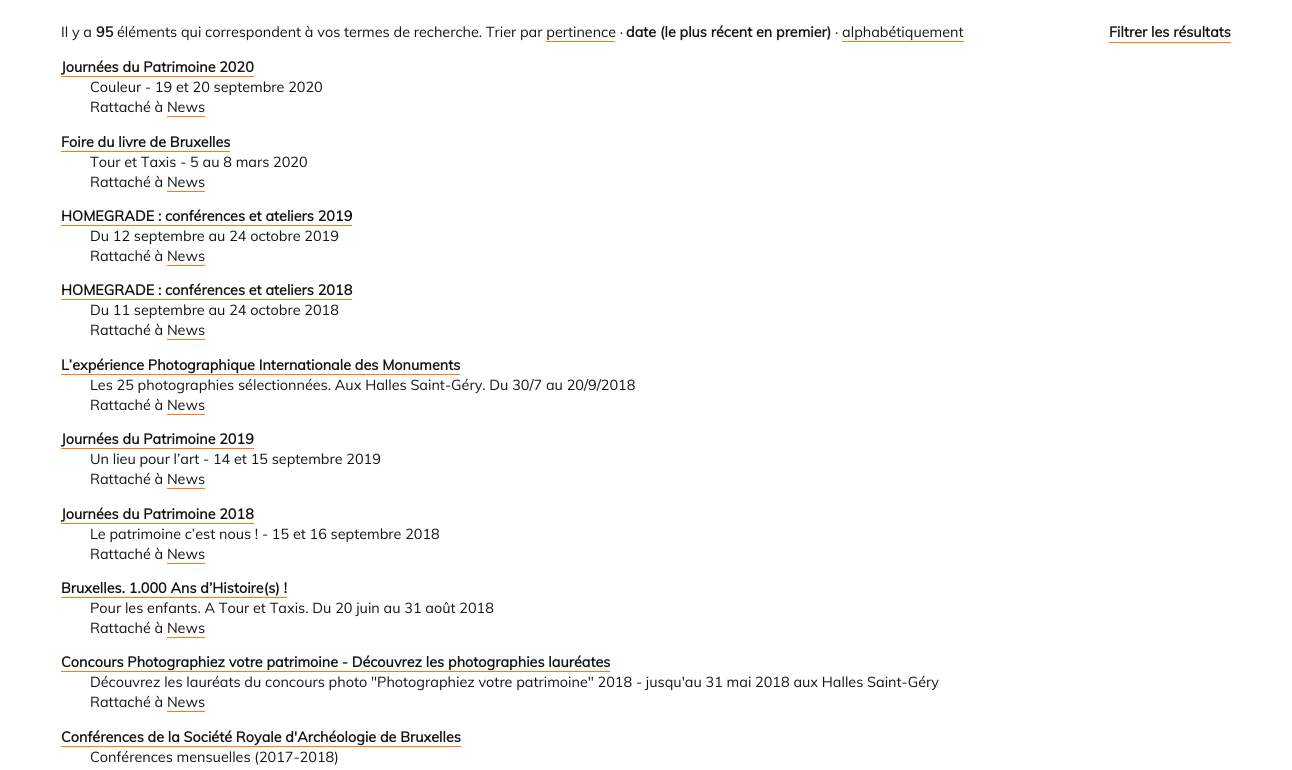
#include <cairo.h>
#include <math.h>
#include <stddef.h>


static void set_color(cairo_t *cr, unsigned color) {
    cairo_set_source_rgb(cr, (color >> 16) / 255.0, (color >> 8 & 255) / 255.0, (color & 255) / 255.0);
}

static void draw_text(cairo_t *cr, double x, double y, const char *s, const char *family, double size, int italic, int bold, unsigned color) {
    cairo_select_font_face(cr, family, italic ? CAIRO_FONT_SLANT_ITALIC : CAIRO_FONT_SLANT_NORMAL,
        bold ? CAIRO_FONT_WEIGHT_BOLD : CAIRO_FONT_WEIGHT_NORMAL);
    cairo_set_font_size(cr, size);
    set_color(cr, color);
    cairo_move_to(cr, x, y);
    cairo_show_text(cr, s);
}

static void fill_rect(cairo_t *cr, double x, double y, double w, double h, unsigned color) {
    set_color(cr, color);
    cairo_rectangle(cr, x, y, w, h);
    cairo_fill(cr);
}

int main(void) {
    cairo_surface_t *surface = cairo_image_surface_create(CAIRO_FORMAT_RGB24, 1292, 770);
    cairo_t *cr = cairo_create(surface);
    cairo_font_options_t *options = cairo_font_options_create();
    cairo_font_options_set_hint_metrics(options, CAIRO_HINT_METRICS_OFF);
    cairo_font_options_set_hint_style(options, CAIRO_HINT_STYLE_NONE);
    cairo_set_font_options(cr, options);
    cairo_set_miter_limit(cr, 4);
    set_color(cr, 0xFFFFFF);
    cairo_paint(cr);
    draw_text(cr, 61, 37, "Il y a", "Muli", 14.4, 0, 0, 0x141414);
    draw_text(cr, 96, 37, "95", "Muli", 14.4, 0, 1, 0x141414);
    draw_text(cr, 117, 37, "éléments qui correspondent à vos termes de recherche. Trier par pertinence ·", "Muli", 14.4, 0, 0, 0x141414);
    draw_text(cr, 626, 37, "date (le plus récent en premier)", "Muli", 14.4, 0, 1, 0x141414);
    fill_rect(cr, 546, 41, 69, 1, 0xFF7814);
    draw_text(cr, 835, 37, "· alphabétiquement", "Muli", 14.4, 0, 0, 0x141414);
    fill_rect(cr, 842, 41, 122, 1, 0xFF7814);
    fill_rect(cr, 1109, 42, 122, 1, 0xFF7814);
    draw_text(cr, 1109, 37, "Filtrer les résultats", "Muli", 14.4, 0, 1, 0x141414);
    draw_text(cr, 61, 72, "Journées du Patrimoine 2020", "Muli", 14.4, 0, 1, 0x141414);
    fill_rect(cr, 61, 76, 193, 1, 0xFF7814);
    draw_text(cr, 90, 92, "Couleur - 19 et 20 septembre 2020", "Muli", 14.4, 0, 0, 0x141414);
    draw_text(cr, 90, 112, "Rattaché à News", "Muli", 14.4, 0, 0, 0x141414);
    fill_rect(cr, 167, 116, 38, 1, 0xFF7814);
    draw_text(cr, 61, 147, "Foire du livre de Bruxelles", "Muli", 14.4, 0, 1, 0x141414);
    fill_rect(cr, 61, 151, 169, 1, 0xFF7814);
    draw_text(cr, 90, 167, "Tour et Taxis - 5 au 8 mars 2020", "Muli", 14.4, 0, 0, 0x141414);
    draw_text(cr, 90, 187, "Rattaché à News", "Muli", 14.4, 0, 0, 0x141414);
    fill_rect(cr, 167, 191, 38, 1, 0xFF7814);
    draw_text(cr, 61, 221, "HOMEGRADE : conférences et ateliers 2019", "Muli", 14.4, 0, 1, 0x141414);
    fill_rect(cr, 61, 225, 291, 1, 0xFF7814);
    draw_text(cr, 90, 241, "Du 12 septembre au 24 octobre 2019", "Muli", 14.4, 0, 0, 0x141414);
    draw_text(cr, 90, 261, "Rattaché à News", "Muli", 14.4, 0, 0, 0x141414);
    fill_rect(cr, 167, 265, 38, 1, 0xFF7814);
    draw_text(cr, 61, 295, "HOMEGRADE : conférences et ateliers 2018", "Muli", 14.4, 0, 1, 0x141414);
    fill_rect(cr, 61, 299, 291, 1, 0xFF7814);
    draw_text(cr, 90, 315, "Du 11 septembre au 24 octobre 2018", "Muli", 14.4, 0, 0, 0x141414);
    draw_text(cr, 90, 335, "Rattaché à News", "Muli", 14.4, 0, 0, 0x141414);
    fill_rect(cr, 167, 339, 38, 1, 0xFF7814);
    draw_text(cr, 61, 370, "L’expérience Photographique Internationale des Monuments", "Muli", 14.4, 0, 1, 0x141414);
    fill_rect(cr, 61, 374, 399, 1, 0xFF7814);
    draw_text(cr, 90, 390, "Les 25 photographies sélectionnées. Aux Halles Saint-Géry. Du 30/7 au 20/9/2018", "Muli", 14.4, 0, 0, 0x141414);
    draw_text(cr, 90, 410, "Rattaché à News", "Muli", 14.4, 0, 0, 0x141414);
    fill_rect(cr, 167, 414, 38, 1, 0xFF7814);
    draw_text(cr, 61, 444, "Journées du Patrimoine 2019", "Muli", 14.4, 0, 1, 0x141414);
    fill_rect(cr, 61, 448, 193, 1, 0xFF7814);
    draw_text(cr, 90, 464, "Un lieu pour l’art - 14 et 15 septembre 2019", "Muli", 14.4, 0, 0, 0x141414);
    draw_text(cr, 90, 484, "Rattaché à News", "Muli", 14.4, 0, 0, 0x141414);
    fill_rect(cr, 167, 488, 38, 1, 0xFF7814);
    draw_text(cr, 61, 519, "Journées du Patrimoine 2018", "Muli", 14.4, 0, 1, 0x141414);
    fill_rect(cr, 61, 523, 193, 1, 0xFF7814);
    draw_text(cr, 90, 539, "Le patrimoine c’est nous ! - 15 et 16 septembre 2018", "Muli", 14.4, 0, 0, 0x141414);
    draw_text(cr, 90, 559, "Rattaché à News", "Muli", 14.4, 0, 0, 0x141414);
    fill_rect(cr, 167, 563, 38, 1, 0xFF7814);
    draw_text(cr, 61, 593, "Bruxelles. 1.000 Ans d’Histoire(s) !", "Muli", 14.4, 0, 1, 0x141414);
    fill_rect(cr, 61, 597, 226, 1, 0xFF7814);
    draw_text(cr, 90, 613, "Pour les enfants. A Tour et Taxis. Du 20 juin au 31 août 2018", "Muli", 14.4, 0, 0, 0x141414);
    draw_text(cr, 90, 633, "Rattaché à News", "Muli", 14.4, 0, 0, 0x141414);
    fill_rect(cr, 167, 637, 38, 1, 0xFF7814);
    draw_text(cr, 61, 667, "Concours Photographiez votre patrimoine - Découvrez les photographies lauréates", "Muli", 14.4, 0, 1, 0x141414);
    fill_rect(cr, 61, 671, 549, 1, 0xFF7814);
    draw_text(cr, 90, 687, "Découvrez les lauréats du concours photo \"Photographiez votre patrimoine\" 2018 - jusqu'au 31 mai 2018 aux Halles Saint-Géry", "Muli", 14.4, 0, 0, 0x141414);
    draw_text(cr, 90, 707, "Rattaché à News", "Muli", 14.4, 0, 0, 0x141414);
    fill_rect(cr, 167, 711, 38, 1, 0xFF7814);
    draw_text(cr, 61, 742, "Conférences de la Société Royale d'Archéologie de Bruxelles", "Muli", 14.4, 0, 1, 0x141414);
    fill_rect(cr, 61, 746, 400, 1, 0xFF7814);
    draw_text(cr, 90, 762, "Conférences mensuelles (2017-2018)", "Muli", 14.4, 0, 0, 0x141414);
    cairo_surface_write_to_png(surface, "output.png");
    cairo_font_options_destroy(options);
    cairo_destroy(cr);
    cairo_surface_destroy(surface);
    return 0;
}
